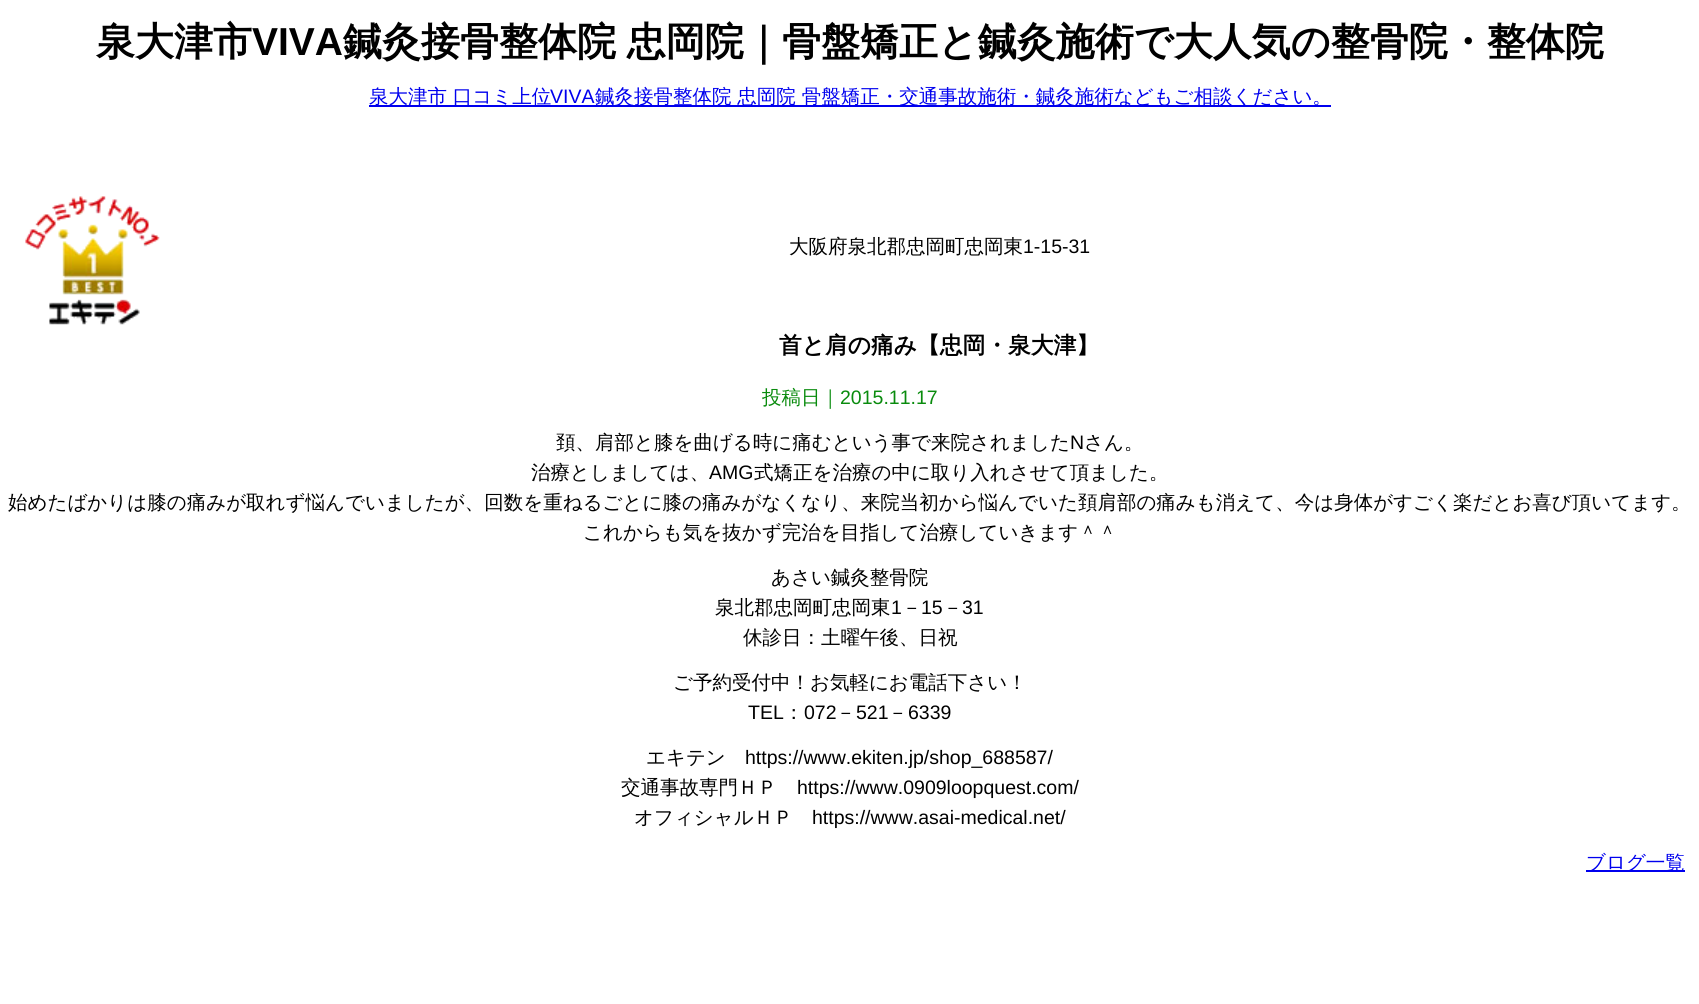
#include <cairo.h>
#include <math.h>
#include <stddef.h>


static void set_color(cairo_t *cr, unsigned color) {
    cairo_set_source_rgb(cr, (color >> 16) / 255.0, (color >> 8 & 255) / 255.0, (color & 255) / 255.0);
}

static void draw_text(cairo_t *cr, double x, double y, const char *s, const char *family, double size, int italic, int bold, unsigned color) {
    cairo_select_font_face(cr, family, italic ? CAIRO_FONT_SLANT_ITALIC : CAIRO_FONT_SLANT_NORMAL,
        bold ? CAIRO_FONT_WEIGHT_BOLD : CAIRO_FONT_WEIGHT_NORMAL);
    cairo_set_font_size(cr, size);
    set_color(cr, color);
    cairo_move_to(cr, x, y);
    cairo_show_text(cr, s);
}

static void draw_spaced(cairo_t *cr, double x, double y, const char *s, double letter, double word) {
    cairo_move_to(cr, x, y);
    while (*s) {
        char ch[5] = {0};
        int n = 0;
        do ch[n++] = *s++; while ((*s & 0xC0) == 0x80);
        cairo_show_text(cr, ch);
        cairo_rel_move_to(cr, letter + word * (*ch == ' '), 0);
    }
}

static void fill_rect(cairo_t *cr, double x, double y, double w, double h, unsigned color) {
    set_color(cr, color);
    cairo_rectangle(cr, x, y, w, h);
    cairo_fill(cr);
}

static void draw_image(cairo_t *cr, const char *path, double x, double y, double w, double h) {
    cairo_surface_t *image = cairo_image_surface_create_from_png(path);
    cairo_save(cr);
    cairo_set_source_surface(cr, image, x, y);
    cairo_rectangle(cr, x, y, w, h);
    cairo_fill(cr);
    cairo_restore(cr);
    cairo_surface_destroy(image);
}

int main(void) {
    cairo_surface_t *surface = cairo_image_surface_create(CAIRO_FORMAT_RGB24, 1699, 1004);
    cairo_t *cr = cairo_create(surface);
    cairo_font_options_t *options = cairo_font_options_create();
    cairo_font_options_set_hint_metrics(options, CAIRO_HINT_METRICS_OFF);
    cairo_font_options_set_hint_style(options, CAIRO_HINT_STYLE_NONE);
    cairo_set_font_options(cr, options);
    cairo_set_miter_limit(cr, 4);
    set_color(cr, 0xFFFFFF);
    cairo_paint(cr);
    draw_text(cr, 96, 55, "泉大津市", "WenQuanYi Zen Hei", 39, 0, 1, 0x000000);
    draw_text(cr, 252, 55, "VIVA", "Liberation Sans", 39, 0, 1, 0x000000);
    cairo_select_font_face(cr, "WenQuanYi Zen Hei", CAIRO_FONT_SLANT_NORMAL, CAIRO_FONT_WEIGHT_BOLD);
    draw_spaced(cr, 343, 55, "鍼灸接骨整体院 忠岡院｜骨盤矯正と鍼灸施術で大人気の整骨院・整体院", 0, -1);
    fill_rect(cr, 369, 105, 962, 2, 0x0000EE);
    draw_text(cr, 369, 103, "泉大津市 口コミ上位", "WenQuanYi Zen Hei Medium", 19.5, 0, 0, 0x0000EE);
    draw_text(cr, 550, 103, "VIVA", "Liberation Sans", 19.5, 0, 0, 0x0000EE);
    draw_text(cr, 595, 103, "鍼灸接骨整体院 忠岡院 骨盤矯正・交通事故施術・鍼灸施術などもご相談ください。", "WenQuanYi Zen Hei Medium", 19.5, 0, 0, 0x0000EE);
    draw_image(cr, "assets/img1.png", 25, 196, 135, 129);
    draw_text(cr, 789, 253, "大阪府泉北郡忠岡町忠岡東", "WenQuanYi Zen Hei Medium", 19.5, 0, 0, 0x000000);
    draw_text(cr, 1023, 253, "1-15-31", "Liberation Sans", 19.5, 0, 0, 0x000000);
    draw_text(cr, 779, 353, "首と肩の痛み【忠岡・泉大津】", "WenQuanYi Zen Hei", 22.75, 0, 1, 0x000000);
    draw_text(cr, 762, 404, "投稿日｜", "WenQuanYi Zen Hei Medium", 19.5, 0, 0, 0x098B0D);
    draw_text(cr, 840, 404, "2015.11.17", "Liberation Sans", 19.5, 0, 0, 0x098B0D);
    draw_text(cr, 556, 449, "頚、肩部と膝を曲げる時に痛むという事で来院されました", "WenQuanYi Zen Hei Medium", 19.5, 0, 0, 0x000000);
    draw_text(cr, 1070, 449, "N", "Liberation Sans", 19.5, 0, 0, 0x000000);
    draw_text(cr, 1084, 449, "さん。", "WenQuanYi Zen Hei Medium", 19.5, 0, 0, 0x000000);
    draw_text(cr, 531, 479, "治療としましては、", "WenQuanYi Zen Hei Medium", 19.5, 0, 0, 0x000000);
    draw_text(cr, 709, 479, "AMG", "Liberation Sans", 19.5, 0, 0, 0x000000);
    draw_text(cr, 754, 479, "式矯正を治療の中に取り入れさせて頂ました。", "WenQuanYi Zen Hei Medium", 19.5, 0, 0, 0x000000);
    draw_text(cr, 8, 509, "始めたばかりは膝の痛みが取れず悩んでいましたが、回数を重ねるごとに膝の痛みがなくなり、来院当初から悩んでいた頚肩部の痛みも消えて、今は身体がすごく楽だとお喜び頂いてます。", "WenQuanYi Zen Hei Medium", 19.5, 0, 0, 0x000000);
    draw_text(cr, 583, 539, "これからも気を抜かず完治を目指して治療していきます＾＾", "WenQuanYi Zen Hei Medium", 19.5, 0, 0, 0x000000);
    draw_text(cr, 771, 584, "あさい鍼灸整骨院", "WenQuanYi Zen Hei Medium", 19.5, 0, 0, 0x000000);
    draw_text(cr, 715, 614, "泉北郡忠岡町忠岡東", "WenQuanYi Zen Hei Medium", 19.5, 0, 0, 0x000000);
    draw_text(cr, 891, 614, "1", "Liberation Sans", 19.5, 0, 0, 0x000000);
    draw_text(cr, 902, 614, "－", "WenQuanYi Zen Hei Medium", 19.5, 0, 0, 0x000000);
    draw_text(cr, 921, 614, "15", "Liberation Sans", 19.5, 0, 0, 0x000000);
    draw_text(cr, 943, 614, "－", "WenQuanYi Zen Hei Medium", 19.5, 0, 0, 0x000000);
    draw_text(cr, 962, 614, "31", "Liberation Sans", 19.5, 0, 0, 0x000000);
    draw_text(cr, 743, 644, "休診日：土曜午後、日祝", "WenQuanYi Zen Hei Medium", 19.5, 0, 0, 0x000000);
    draw_text(cr, 673, 689, "ご予約受付中！お気軽にお電話下さい！", "WenQuanYi Zen Hei Medium", 19.5, 0, 0, 0x000000);
    draw_text(cr, 748, 719, "TEL", "Liberation Sans", 19.5, 0, 0, 0x000000);
    draw_text(cr, 784, 719, "：", "WenQuanYi Zen Hei Medium", 19.5, 0, 0, 0x000000);
    draw_text(cr, 804, 719, "072", "Liberation Sans", 19.5, 0, 0, 0x000000);
    draw_text(cr, 836, 719, "－", "WenQuanYi Zen Hei Medium", 19.5, 0, 0, 0x000000);
    draw_text(cr, 856, 719, "521", "Liberation Sans", 19.5, 0, 0, 0x000000);
    draw_text(cr, 888, 719, "－", "WenQuanYi Zen Hei Medium", 19.5, 0, 0, 0x000000);
    draw_text(cr, 908, 719, "6339", "Liberation Sans", 19.5, 0, 0, 0x000000);
    draw_text(cr, 646, 764, "エキテン", "WenQuanYi Zen Hei Medium", 19.5, 0, 0, 0x000000);
    draw_text(cr, 745, 764, "https://www.ekiten.jp/shop_688587/", "Liberation Sans", 19.5, 0, 0, 0x000000);
    draw_text(cr, 621, 794, "交通事故専門ＨＰ", "WenQuanYi Zen Hei Medium", 19.5, 0, 0, 0x000000);
    draw_text(cr, 797, 794, "https://www.0909loopquest.com/", "Liberation Sans", 19.5, 0, 0, 0x000000);
    draw_text(cr, 634, 824, "オフィシャルＨＰ", "WenQuanYi Zen Hei Medium", 19.5, 0, 0, 0x000000);
    draw_text(cr, 812, 824, "https://www.asai-medical.net/", "Liberation Sans", 19.5, 0, 0, 0x000000);
    fill_rect(cr, 1586, 870, 99, 2, 0x0000EE);
    draw_text(cr, 1586, 869, "ブログ一覧", "WenQuanYi Zen Hei Medium", 19.5, 0, 0, 0x0000EE);
    cairo_surface_write_to_png(surface, "output.png");
    cairo_font_options_destroy(options);
    cairo_destroy(cr);
    cairo_surface_destroy(surface);
    return 0;
}
